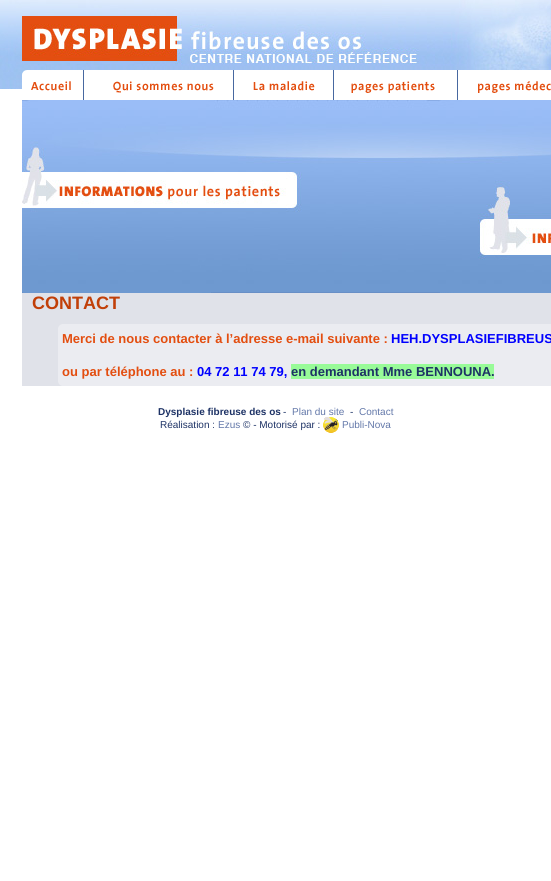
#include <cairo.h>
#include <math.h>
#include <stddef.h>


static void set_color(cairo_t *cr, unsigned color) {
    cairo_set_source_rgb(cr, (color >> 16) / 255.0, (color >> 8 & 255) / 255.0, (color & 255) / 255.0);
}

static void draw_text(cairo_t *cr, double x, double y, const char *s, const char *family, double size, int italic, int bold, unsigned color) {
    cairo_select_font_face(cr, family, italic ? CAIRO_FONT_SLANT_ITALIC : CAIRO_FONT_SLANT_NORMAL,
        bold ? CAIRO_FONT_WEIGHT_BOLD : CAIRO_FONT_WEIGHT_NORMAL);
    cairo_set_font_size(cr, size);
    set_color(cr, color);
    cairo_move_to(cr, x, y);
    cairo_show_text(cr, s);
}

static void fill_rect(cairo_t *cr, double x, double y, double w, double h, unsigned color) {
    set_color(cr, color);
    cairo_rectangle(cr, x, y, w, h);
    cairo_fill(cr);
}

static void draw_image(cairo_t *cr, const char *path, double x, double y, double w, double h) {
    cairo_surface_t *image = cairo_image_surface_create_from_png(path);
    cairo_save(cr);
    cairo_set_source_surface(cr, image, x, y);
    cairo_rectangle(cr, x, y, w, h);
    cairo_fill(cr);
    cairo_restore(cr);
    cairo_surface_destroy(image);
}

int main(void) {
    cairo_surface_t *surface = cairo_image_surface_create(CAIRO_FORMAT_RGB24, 551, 881);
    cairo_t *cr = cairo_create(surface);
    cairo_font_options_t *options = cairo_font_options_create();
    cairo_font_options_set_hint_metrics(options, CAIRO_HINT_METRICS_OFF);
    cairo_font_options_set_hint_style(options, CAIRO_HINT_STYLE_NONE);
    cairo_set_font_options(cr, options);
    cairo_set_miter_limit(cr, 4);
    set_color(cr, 0xFFFFFF);
    cairo_paint(cr);
    draw_image(cr, "assets/img1.png", 0, 0, 22, 89);
    draw_image(cr, "assets/img2.png", 22, 0, 397, 70);
    draw_image(cr, "assets/img3.png", 419, 0, 132, 70);
    draw_image(cr, "assets/img4.png", 22, 70, 62, 30);
    draw_image(cr, "assets/img5.png", 113, 70, 121, 30);
    draw_image(cr, "assets/img6.png", 253, 70, 81, 30);
    draw_image(cr, "assets/img7.png", 351, 70, 107, 30);
    draw_image(cr, "assets/img8.png", 478, 81, 73, 12);
    draw_image(cr, "assets/img9.png", 22, 100, 529, 193);
    fill_rect(cr, 22, 293, 529, 93, 0xE0E2E9);
    draw_text(cr, 32, 309, "CONTACT", "Liberation Sans", 18, 0, 1, 0xC13F08);
    draw_image(cr, "assets/img10.png", 58, 324, 4, 4);
    fill_rect(cr, 62, 324, 489, 4, 0xEBECF1);
    fill_rect(cr, 58, 328, 493, 54, 0xEBECF1);
    draw_text(cr, 62, 343, "Merci de nous contacter à l’adresse e-mail suivante :", "Liberation Sans", 13, 0, 1, 0xE34E10);
    draw_text(cr, 391, 343, "HEH.DYSPLASIEFIBREUS", "Liberation Sans", 13, 0, 1, 0x0000FF);
    draw_text(cr, 62, 376, "ou par téléphone au :", "Liberation Sans", 13, 0, 1, 0xE34E10);
    draw_text(cr, 197, 376, "04 72 11 74 79,", "Liberation Sans", 13, 0, 1, 0x0000FF);
    fill_rect(cr, 291, 364, 203, 15, 0x98FB98);
    draw_text(cr, 291, 376, "en demandant Mme BENNOUNA.", "Liberation Sans", 13, 0, 1, 0x1D3265);
    draw_image(cr, "assets/img11.png", 58, 382, 4, 4);
    fill_rect(cr, 62, 382, 489, 4, 0xEBECF1);
    draw_text(cr, 158, 415, "Dysplasie fibreuse des os", "Liberation Sans", 10, 0, 1, 0x1D3265);
    draw_text(cr, 283, 415, "-", "Liberation Sans", 10, 0, 0, 0x1D3265);
    draw_text(cr, 292, 415, "Plan du site", "Liberation Sans", 10, 0, 0, 0x6378A9);
    draw_text(cr, 350, 415, "-", "Liberation Sans", 10, 0, 0, 0x1D3265);
    draw_text(cr, 359, 415, "Contact", "Liberation Sans", 10, 0, 0, 0x6378A9);
    draw_text(cr, 160, 428, "Réalisation :", "Liberation Sans", 10, 0, 0, 0x1D3265);
    draw_text(cr, 218, 428, "Ezus", "Liberation Sans", 10, 0, 0, 0x6378A9);
    draw_text(cr, 243, 428, "© - Motorisé par :", "Liberation Sans", 10, 0, 0, 0x1D3265);
    draw_image(cr, "assets/img12.png", 323, 417, 16, 16);
    draw_text(cr, 342, 428, "Publi-Nova", "Liberation Sans", 10, 0, 0, 0x6378A9);
    cairo_surface_write_to_png(surface, "output.png");
    cairo_font_options_destroy(options);
    cairo_destroy(cr);
    cairo_surface_destroy(surface);
    return 0;
}
